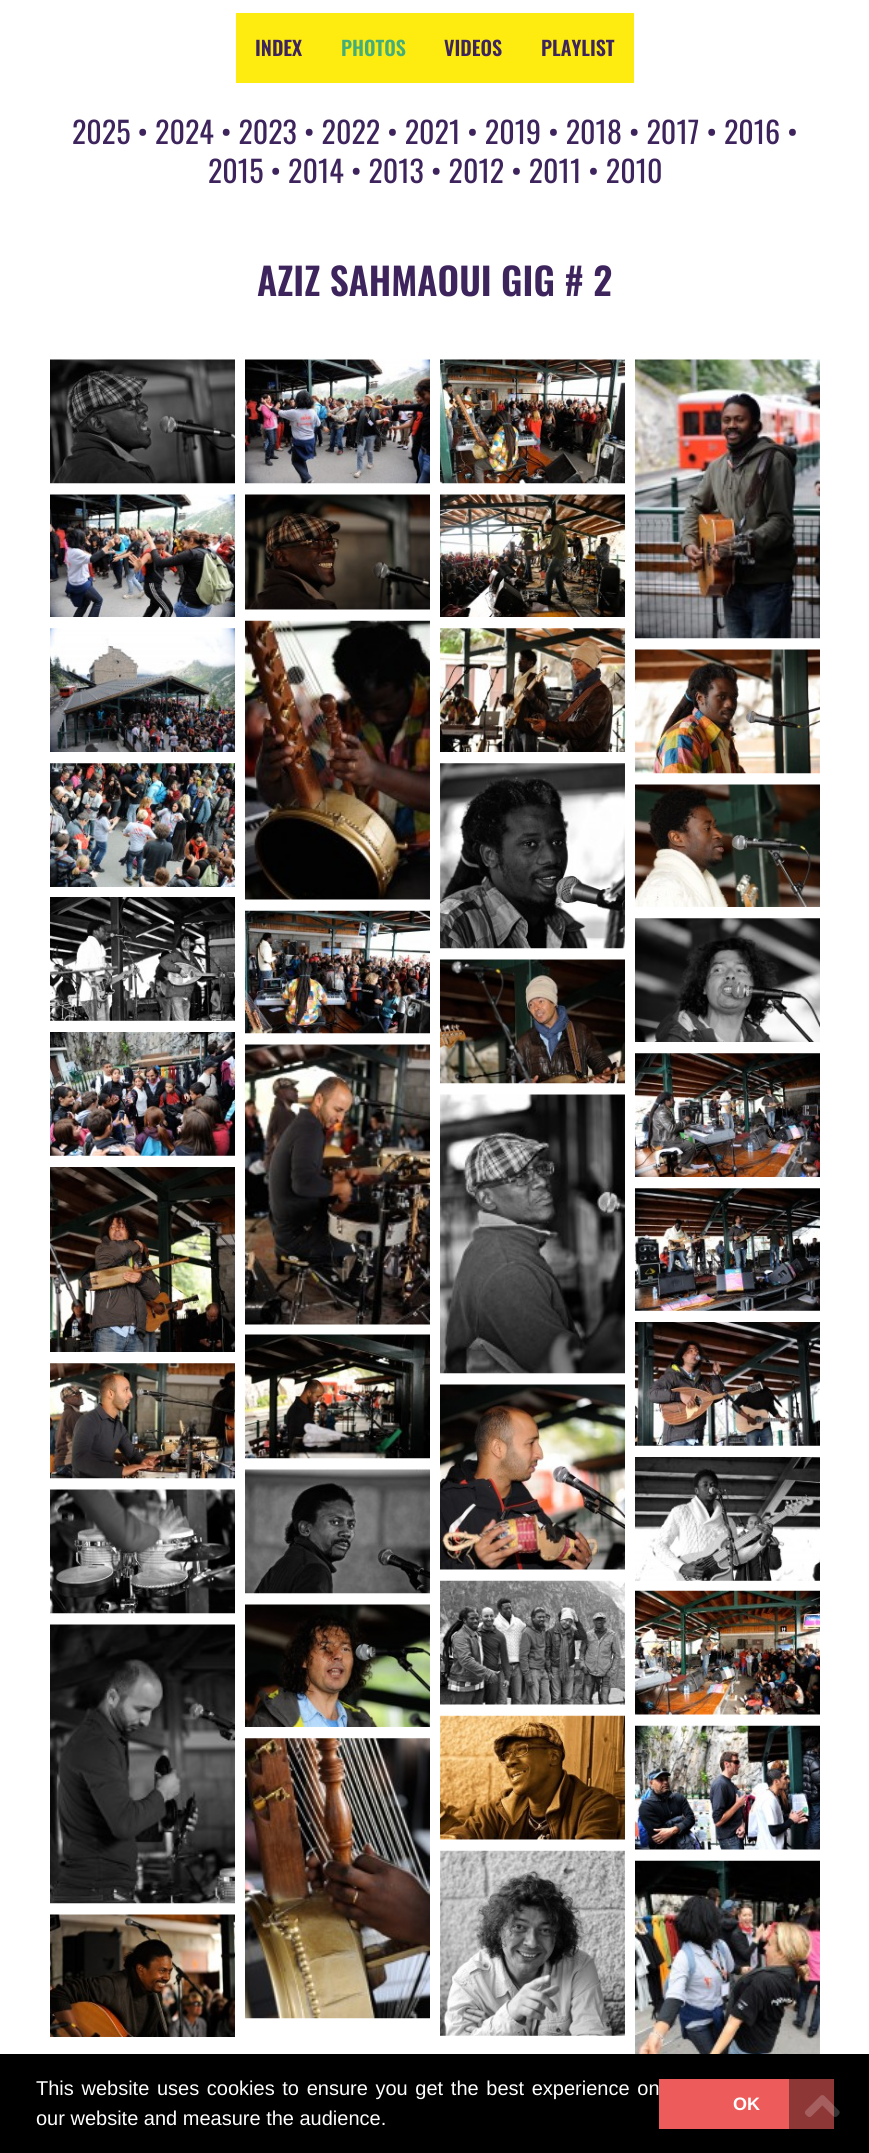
#include <cairo.h>
#include <math.h>
#include <stddef.h>


static void set_color(cairo_t *cr, unsigned color) {
    cairo_set_source_rgb(cr, (color >> 16) / 255.0, (color >> 8 & 255) / 255.0, (color & 255) / 255.0);
}

static void draw_text(cairo_t *cr, double x, double y, const char *s, const char *family, double size, int italic, int bold, unsigned color) {
    cairo_select_font_face(cr, family, italic ? CAIRO_FONT_SLANT_ITALIC : CAIRO_FONT_SLANT_NORMAL,
        bold ? CAIRO_FONT_WEIGHT_BOLD : CAIRO_FONT_WEIGHT_NORMAL);
    cairo_set_font_size(cr, size);
    set_color(cr, color);
    cairo_move_to(cr, x, y);
    cairo_show_text(cr, s);
}

static void draw_spaced(cairo_t *cr, double x, double y, const char *s, double letter, double word) {
    cairo_move_to(cr, x, y);
    while (*s) {
        char ch[5] = {0};
        int n = 0;
        do ch[n++] = *s++; while ((*s & 0xC0) == 0x80);
        cairo_show_text(cr, ch);
        cairo_rel_move_to(cr, letter + word * (*ch == ' '), 0);
    }
}

static void fill_rect(cairo_t *cr, double x, double y, double w, double h, unsigned color) {
    set_color(cr, color);
    cairo_rectangle(cr, x, y, w, h);
    cairo_fill(cr);
}

static void draw_image(cairo_t *cr, const char *path, double x, double y, double w, double h) {
    cairo_surface_t *image = cairo_image_surface_create_from_png(path);
    cairo_save(cr);
    cairo_set_source_surface(cr, image, x, y);
    cairo_rectangle(cr, x, y, w, h);
    cairo_fill(cr);
    cairo_restore(cr);
    cairo_surface_destroy(image);
}

int main(void) {
    cairo_surface_t *surface = cairo_image_surface_create(CAIRO_FORMAT_RGB24, 869, 2153);
    cairo_t *cr = cairo_create(surface);
    cairo_font_options_t *options = cairo_font_options_create();
    cairo_font_options_set_hint_metrics(options, CAIRO_HINT_METRICS_OFF);
    cairo_font_options_set_hint_style(options, CAIRO_HINT_STYLE_NONE);
    cairo_set_font_options(cr, options);
    cairo_set_miter_limit(cr, 4);
    set_color(cr, 0xFFFFFF);
    cairo_paint(cr);
    fill_rect(cr, 236, 13, 398, 70, 0xFEEB10);
    draw_text(cr, 255, 56, "INDEX", "Oswald SemiBold", 20, 0, 0, 0x3E245C);
    draw_text(cr, 341, 56, "PHOTOS", "Oswald SemiBold", 20, 0, 0, 0x45AE78);
    draw_text(cr, 444, 56, "VIDEOS", "Oswald SemiBold", 20, 0, 0, 0x3E245C);
    draw_text(cr, 541, 56, "PLAYLIST", "Oswald SemiBold", 20, 0, 0, 0x3E245C);
    draw_text(cr, 72, 144, "2025 • 2024 • 2023 • 2022 • 2021 • 2019 • 2018 • 2017 • 2016 •", "Oswald", 30, 0, 0, 0x3E245C);
    draw_text(cr, 208, 183, "2015 • 2014 • 2013 • 2012 • 2011 • 2010", "Oswald", 30, 0, 0, 0x3E245C);
    draw_text(cr, 257, 296, "AZIZ SAHMAOUI GIG # 2", "Oswald SemiBold", 37.5, 0, 0, 0x3E245C);
    draw_image(cr, "assets/img1.png", 50, 359, 185, 125);
    draw_image(cr, "assets/img2.png", 245, 359, 185, 125);
    draw_image(cr, "assets/img3.png", 440, 359, 185, 125);
    draw_image(cr, "assets/img4.png", 635, 359, 185, 280);
    draw_image(cr, "assets/img5.png", 50, 494, 185, 123);
    draw_image(cr, "assets/img6.png", 245, 494, 185, 116);
    draw_image(cr, "assets/img7.png", 440, 494, 185, 123);
    draw_image(cr, "assets/img8.png", 50, 628, 185, 124);
    draw_image(cr, "assets/img9.png", 245, 620, 185, 280);
    draw_image(cr, "assets/img10.png", 440, 628, 185, 124);
    draw_image(cr, "assets/img11.png", 635, 649, 185, 125);
    draw_image(cr, "assets/img12.png", 50, 763, 185, 124);
    draw_image(cr, "assets/img13.png", 440, 763, 185, 186);
    draw_image(cr, "assets/img14.png", 635, 784, 185, 123);
    draw_image(cr, "assets/img15.png", 50, 897, 185, 124);
    draw_image(cr, "assets/img16.png", 245, 910, 185, 124);
    draw_image(cr, "assets/img17.png", 440, 959, 185, 125);
    draw_image(cr, "assets/img18.png", 635, 918, 185, 124);
    draw_image(cr, "assets/img19.png", 50, 1032, 185, 124);
    draw_image(cr, "assets/img20.png", 245, 1044, 185, 281);
    draw_image(cr, "assets/img21.png", 440, 1094, 185, 280);
    draw_image(cr, "assets/img22.png", 635, 1053, 185, 124);
    draw_image(cr, "assets/img23.png", 50, 1167, 185, 185);
    draw_image(cr, "assets/img24.png", 635, 1188, 185, 123);
    draw_image(cr, "assets/img25.png", 50, 1363, 185, 116);
    draw_image(cr, "assets/img26.png", 245, 1334, 185, 125);
    draw_image(cr, "assets/img27.png", 440, 1384, 185, 186);
    draw_image(cr, "assets/img28.png", 635, 1322, 185, 124);
    draw_image(cr, "assets/img29.png", 50, 1489, 185, 125);
    draw_image(cr, "assets/img30.png", 245, 1469, 185, 125);
    draw_image(cr, "assets/img31.png", 635, 1457, 185, 124);
    draw_image(cr, "assets/img32.png", 50, 1624, 185, 280);
    draw_image(cr, "assets/img33.png", 245, 1604, 185, 123);
    draw_image(cr, "assets/img34.png", 440, 1580, 185, 125);
    draw_image(cr, "assets/img35.png", 635, 1590, 185, 125);
    draw_image(cr, "assets/img36.png", 245, 1738, 185, 281);
    draw_image(cr, "assets/img37.png", 440, 1715, 185, 125);
    draw_image(cr, "assets/img38.png", 635, 1725, 185, 125);
    draw_image(cr, "assets/img39.png", 50, 1914, 185, 123);
    draw_image(cr, "assets/img40.png", 440, 1850, 185, 186);
    draw_image(cr, "assets/img41.png", 635, 1860, 185, 194);
    fill_rect(cr, 0, 2054, 869, 99, 0x000000);
    cairo_select_font_face(cr, "Liberation Sans", CAIRO_FONT_SLANT_NORMAL, CAIRO_FONT_WEIGHT_NORMAL);
    cairo_set_font_size(cr, 20);
    set_color(cr, 0xFFFFFF);
    draw_spaced(cr, 36, 2095, "This website uses cookies to ensure you get the best experience on", 0, 2.1);
    draw_text(cr, 36, 2125, "our website and measure the audience.", "Liberation Sans", 20, 0, 0, 0xFFFFFF);
    fill_rect(cr, 659, 2079, 175, 50, 0xED5B5B);
    draw_text(cr, 733, 2110, "OK", "Liberation Sans", 18, 0, 1, 0xFFFFFF);
    cairo_set_source_rgba(cr, 0, 0, 0, 0.4);
    cairo_rectangle(cr, 789, 2079, 45, 50);
    cairo_fill(cr);
    draw_image(cr, "assets/img42.png", 805, 2095, 35, 22);
    cairo_surface_write_to_png(surface, "output.png");
    cairo_font_options_destroy(options);
    cairo_destroy(cr);
    cairo_surface_destroy(surface);
    return 0;
}
